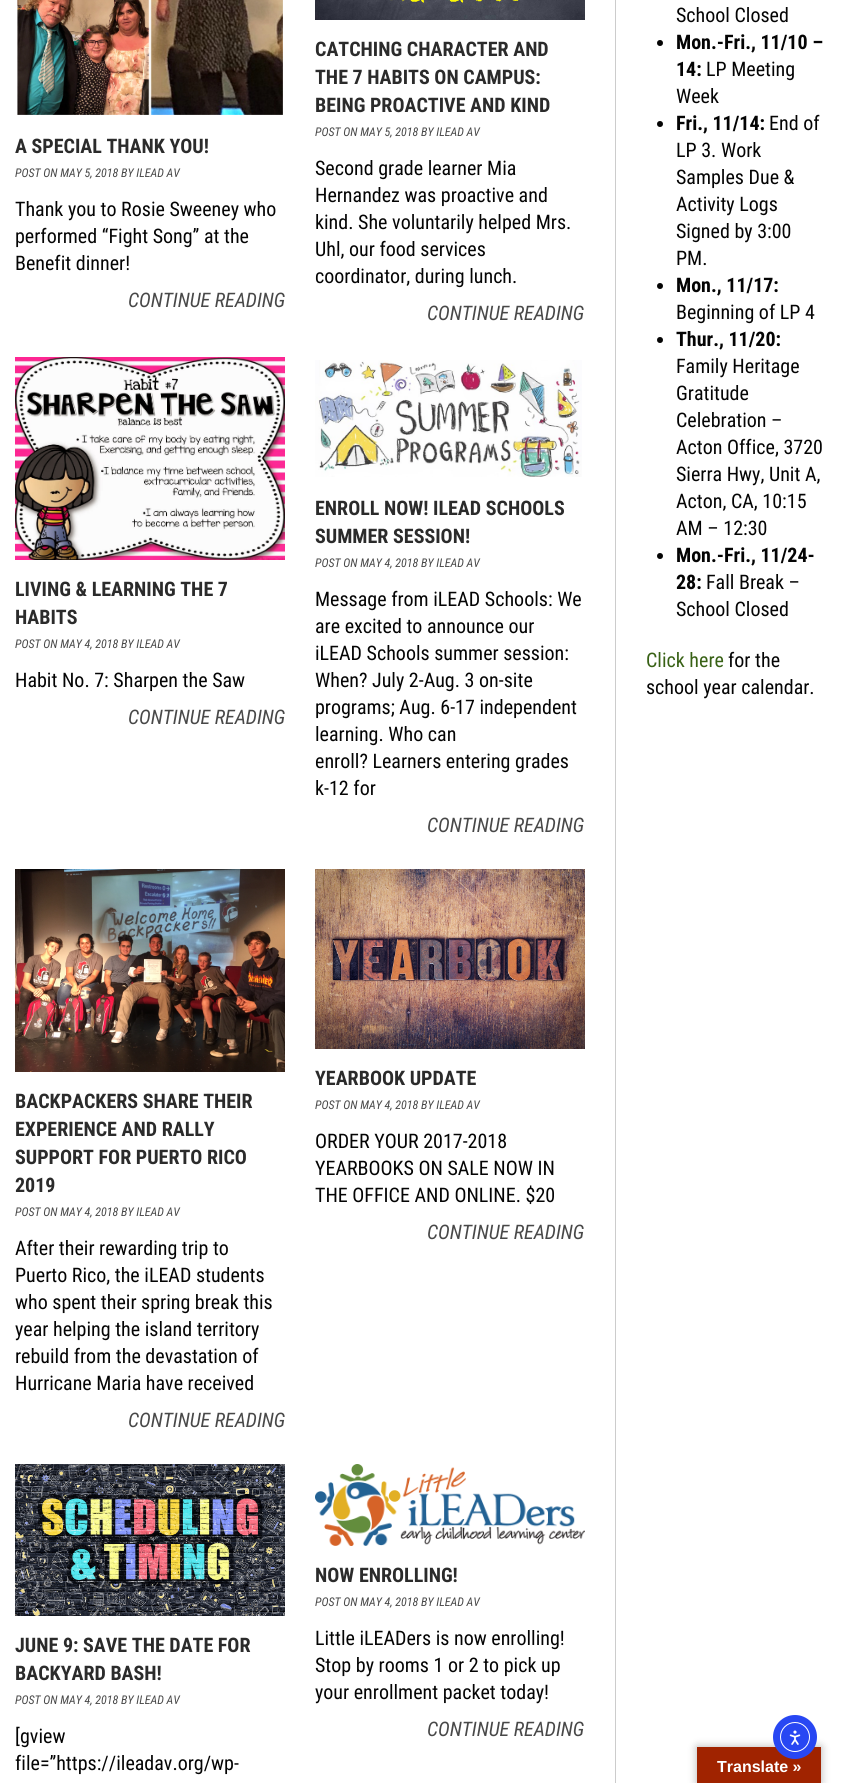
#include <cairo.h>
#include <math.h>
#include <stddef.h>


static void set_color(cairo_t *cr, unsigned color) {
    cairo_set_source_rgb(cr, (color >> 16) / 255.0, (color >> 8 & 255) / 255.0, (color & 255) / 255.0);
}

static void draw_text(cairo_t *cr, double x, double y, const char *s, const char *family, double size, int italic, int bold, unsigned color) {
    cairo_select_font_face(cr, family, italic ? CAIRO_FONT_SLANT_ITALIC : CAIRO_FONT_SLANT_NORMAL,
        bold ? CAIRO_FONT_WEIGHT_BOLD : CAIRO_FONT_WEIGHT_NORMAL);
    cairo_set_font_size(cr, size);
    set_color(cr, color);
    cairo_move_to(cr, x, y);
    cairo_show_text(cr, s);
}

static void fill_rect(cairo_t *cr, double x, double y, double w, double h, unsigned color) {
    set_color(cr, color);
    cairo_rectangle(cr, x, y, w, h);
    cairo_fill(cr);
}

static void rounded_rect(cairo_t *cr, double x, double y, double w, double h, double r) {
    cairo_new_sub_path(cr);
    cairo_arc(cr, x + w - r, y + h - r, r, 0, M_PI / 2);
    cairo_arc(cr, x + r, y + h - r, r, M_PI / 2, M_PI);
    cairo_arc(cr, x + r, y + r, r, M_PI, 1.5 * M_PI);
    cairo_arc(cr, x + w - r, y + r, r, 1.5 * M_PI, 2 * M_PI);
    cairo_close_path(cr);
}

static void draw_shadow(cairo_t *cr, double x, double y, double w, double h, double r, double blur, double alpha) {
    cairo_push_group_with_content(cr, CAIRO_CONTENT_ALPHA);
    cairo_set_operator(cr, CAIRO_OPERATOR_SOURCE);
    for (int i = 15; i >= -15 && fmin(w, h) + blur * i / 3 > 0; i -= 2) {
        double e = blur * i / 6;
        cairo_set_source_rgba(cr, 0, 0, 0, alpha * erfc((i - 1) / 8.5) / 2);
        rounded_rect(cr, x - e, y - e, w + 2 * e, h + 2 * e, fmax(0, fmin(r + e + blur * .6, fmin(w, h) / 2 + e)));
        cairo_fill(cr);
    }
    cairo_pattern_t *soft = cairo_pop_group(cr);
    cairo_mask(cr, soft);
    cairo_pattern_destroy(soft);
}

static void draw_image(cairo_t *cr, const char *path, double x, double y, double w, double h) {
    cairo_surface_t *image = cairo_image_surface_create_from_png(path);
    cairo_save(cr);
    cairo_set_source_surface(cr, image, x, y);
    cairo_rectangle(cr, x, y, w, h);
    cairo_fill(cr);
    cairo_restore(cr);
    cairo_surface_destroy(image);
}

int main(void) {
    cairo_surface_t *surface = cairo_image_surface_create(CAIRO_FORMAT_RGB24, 841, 1783);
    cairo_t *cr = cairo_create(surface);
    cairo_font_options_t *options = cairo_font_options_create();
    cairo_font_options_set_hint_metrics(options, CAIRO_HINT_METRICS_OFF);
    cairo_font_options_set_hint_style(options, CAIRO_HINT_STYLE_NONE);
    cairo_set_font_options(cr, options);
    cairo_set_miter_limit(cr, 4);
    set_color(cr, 0xFFFFFF);
    cairo_paint(cr);
    fill_rect(cr, 615, 0, 1, 1783, 0xCCCCCC);
    draw_image(cr, "assets/img1.png", 17, 0, 266, 115);
    draw_text(cr, 15, 153, "A SPECIAL THANK YOU!", "Roboto Condensed", 20, 0, 1, 0x2B2B2B);
    draw_text(cr, 15, 177, "POST ON MAY 5, 2018 BY ILEAD AV", "Roboto Condensed", 12, 1, 0, 0x484848);
    draw_text(cr, 15, 216, "Thank you to Rosie Sweeney who", "Roboto Condensed", 20, 0, 0, 0x040404);
    draw_text(cr, 15, 243, "performed “Fight Song” at the", "Roboto Condensed", 20, 0, 0, 0x040404);
    draw_text(cr, 15, 270, "Benefit dinner!", "Roboto Condensed", 20, 0, 0, 0x040404);
    draw_text(cr, 128, 307, "CONTINUE READING", "Roboto Condensed", 20, 1, 0, 0x484848);
    draw_image(cr, "assets/img2.png", 315, 0, 270, 20);
    draw_text(cr, 315, 56, "CATCHING CHARACTER AND", "Roboto Condensed", 20, 0, 1, 0x2B2B2B);
    draw_text(cr, 315, 84, "THE 7 HABITS ON CAMPUS:", "Roboto Condensed", 20, 0, 1, 0x2B2B2B);
    draw_text(cr, 315, 112, "BEING PROACTIVE AND KIND", "Roboto Condensed", 20, 0, 1, 0x2B2B2B);
    draw_text(cr, 315, 136, "POST ON MAY 5, 2018 BY ILEAD AV", "Roboto Condensed", 12, 1, 0, 0x484848);
    draw_text(cr, 315, 175, "Second grade learner Mia", "Roboto Condensed", 20, 0, 0, 0x040404);
    draw_text(cr, 315, 202, "Hernandez was proactive and", "Roboto Condensed", 20, 0, 0, 0x040404);
    draw_text(cr, 315, 229, "kind. She voluntarily helped Mrs.", "Roboto Condensed", 20, 0, 0, 0x040404);
    draw_text(cr, 315, 256, "Uhl, our food services", "Roboto Condensed", 20, 0, 0, 0x040404);
    draw_text(cr, 315, 283, "coordinator, during lunch.", "Roboto Condensed", 20, 0, 0, 0x040404);
    draw_text(cr, 427, 320, "CONTINUE READING", "Roboto Condensed", 20, 1, 0, 0x484848);
    draw_image(cr, "assets/img3.png", 15, 357, 270, 203);
    draw_text(cr, 15, 596, "LIVING & LEARNING THE 7", "Roboto Condensed", 20, 0, 1, 0x2B2B2B);
    draw_text(cr, 15, 624, "HABITS", "Roboto Condensed", 20, 0, 1, 0x2B2B2B);
    draw_text(cr, 15, 648, "POST ON MAY 4, 2018 BY ILEAD AV", "Roboto Condensed", 12, 1, 0, 0x484848);
    draw_text(cr, 15, 687, "Habit No. 7: Sharpen the Saw", "Roboto Condensed", 20, 0, 0, 0x040404);
    draw_text(cr, 128, 724, "CONTINUE READING", "Roboto Condensed", 20, 1, 0, 0x484848);
    draw_image(cr, "assets/img4.png", 315, 360, 267, 117);
    draw_text(cr, 315, 515, "ENROLL NOW! ILEAD SCHOOLS", "Roboto Condensed", 20, 0, 1, 0x2B2B2B);
    draw_text(cr, 315, 543, "SUMMER SESSION!", "Roboto Condensed", 20, 0, 1, 0x2B2B2B);
    draw_text(cr, 315, 567, "POST ON MAY 4, 2018 BY ILEAD AV", "Roboto Condensed", 12, 1, 0, 0x484848);
    draw_text(cr, 315, 606, "Message from iLEAD Schools: We", "Roboto Condensed", 20, 0, 0, 0x040404);
    draw_text(cr, 315, 633, "are excited to announce our", "Roboto Condensed", 20, 0, 0, 0x040404);
    draw_text(cr, 315, 660, "iLEAD Schools summer session:", "Roboto Condensed", 20, 0, 0, 0x040404);
    draw_text(cr, 315, 687, "When? July 2-Aug. 3 on-site", "Roboto Condensed", 20, 0, 0, 0x040404);
    draw_text(cr, 315, 714, "programs; Aug. 6-17 independent", "Roboto Condensed", 20, 0, 0, 0x040404);
    draw_text(cr, 315, 741, "learning. Who can", "Roboto Condensed", 20, 0, 0, 0x040404);
    draw_text(cr, 315, 768, "enroll? Learners entering grades", "Roboto Condensed", 20, 0, 0, 0x040404);
    draw_text(cr, 315, 795, "k-12 for", "Roboto Condensed", 20, 0, 0, 0x040404);
    draw_text(cr, 427, 832, "CONTINUE READING", "Roboto Condensed", 20, 1, 0, 0x484848);
    draw_image(cr, "assets/img5.png", 15, 869, 270, 203);
    draw_text(cr, 15, 1108, "BACKPACKERS SHARE THEIR", "Roboto Condensed", 20, 0, 1, 0x2B2B2B);
    draw_text(cr, 15, 1136, "EXPERIENCE AND RALLY", "Roboto Condensed", 20, 0, 1, 0x2B2B2B);
    draw_text(cr, 15, 1164, "SUPPORT FOR PUERTO RICO", "Roboto Condensed", 20, 0, 1, 0x2B2B2B);
    draw_text(cr, 15, 1192, "2019", "Roboto Condensed", 20, 0, 1, 0x2B2B2B);
    draw_text(cr, 15, 1216, "POST ON MAY 4, 2018 BY ILEAD AV", "Roboto Condensed", 12, 1, 0, 0x484848);
    draw_text(cr, 15, 1255, "After their rewarding trip to", "Roboto Condensed", 20, 0, 0, 0x040404);
    draw_text(cr, 15, 1282, "Puerto Rico, the iLEAD students", "Roboto Condensed", 20, 0, 0, 0x040404);
    draw_text(cr, 15, 1309, "who spent their spring break this", "Roboto Condensed", 20, 0, 0, 0x040404);
    draw_text(cr, 15, 1336, "year helping the island territory", "Roboto Condensed", 20, 0, 0, 0x040404);
    draw_text(cr, 15, 1363, "rebuild from the devastation of", "Roboto Condensed", 20, 0, 0, 0x040404);
    draw_text(cr, 15, 1390, "Hurricane Maria have received", "Roboto Condensed", 20, 0, 0, 0x040404);
    draw_text(cr, 128, 1427, "CONTINUE READING", "Roboto Condensed", 20, 1, 0, 0x484848);
    draw_image(cr, "assets/img6.png", 315, 869, 270, 180);
    draw_text(cr, 315, 1085, "YEARBOOK UPDATE", "Roboto Condensed", 20, 0, 1, 0x2B2B2B);
    draw_text(cr, 315, 1109, "POST ON MAY 4, 2018 BY ILEAD AV", "Roboto Condensed", 12, 1, 0, 0x484848);
    draw_text(cr, 315, 1148, "ORDER YOUR 2017-2018", "Roboto Condensed", 20, 0, 0, 0x040404);
    draw_text(cr, 315, 1175, "YEARBOOKS ON SALE NOW IN", "Roboto Condensed", 20, 0, 0, 0x040404);
    draw_text(cr, 315, 1202, "THE OFFICE AND ONLINE. $20", "Roboto Condensed", 20, 0, 0, 0x040404);
    draw_text(cr, 427, 1239, "CONTINUE READING", "Roboto Condensed", 20, 1, 0, 0x484848);
    draw_image(cr, "assets/img7.png", 15, 1464, 270, 152);
    draw_text(cr, 15, 1652, "JUNE 9: SAVE THE DATE FOR", "Roboto Condensed", 20, 0, 1, 0x2B2B2B);
    draw_text(cr, 15, 1680, "BACKYARD BASH!", "Roboto Condensed", 20, 0, 1, 0x2B2B2B);
    draw_text(cr, 15, 1704, "POST ON MAY 4, 2018 BY ILEAD AV", "Roboto Condensed", 12, 1, 0, 0x484848);
    draw_text(cr, 15, 1743, "[gview", "Roboto Condensed", 20, 0, 0, 0x040404);
    draw_text(cr, 15, 1770, "file=”https://ileadav.org/wp-", "Roboto Condensed", 20, 0, 0, 0x040404);
    draw_image(cr, "assets/img8.png", 315, 1464, 270, 82);
    draw_text(cr, 315, 1582, "NOW ENROLLING!", "Roboto Condensed", 20, 0, 1, 0x2B2B2B);
    draw_text(cr, 315, 1606, "POST ON MAY 4, 2018 BY ILEAD AV", "Roboto Condensed", 12, 1, 0, 0x484848);
    draw_text(cr, 315, 1645, "Little iLEADers is now enrolling!", "Roboto Condensed", 20, 0, 0, 0x040404);
    draw_text(cr, 315, 1672, "Stop by rooms 1 or 2 to pick up", "Roboto Condensed", 20, 0, 0, 0x040404);
    draw_text(cr, 315, 1699, "your enrollment packet today!", "Roboto Condensed", 20, 0, 0, 0x040404);
    draw_text(cr, 427, 1736, "CONTINUE READING", "Roboto Condensed", 20, 1, 0, 0x484848);
    draw_text(cr, 676, 22, "School Closed", "Roboto Condensed", 20, 0, 0, 0x040404);
    cairo_new_path(cr);
    cairo_arc(cr, 660, 43, 3, 0, 2 * M_PI);
    cairo_fill(cr);
    draw_text(cr, 676, 49, "Mon.-Fri., 11/10 –", "Roboto Condensed", 20, 0, 1, 0x040404);
    draw_text(cr, 676, 76, "14:", "Roboto Condensed", 20, 0, 1, 0x040404);
    draw_text(cr, 706, 76, "LP Meeting", "Roboto Condensed", 20, 0, 0, 0x040404);
    draw_text(cr, 676, 103, "Week", "Roboto Condensed", 20, 0, 0, 0x040404);
    cairo_new_path(cr);
    cairo_arc(cr, 660, 124, 3, 0, 2 * M_PI);
    cairo_fill(cr);
    draw_text(cr, 676, 130, "Fri., 11/14:", "Roboto Condensed", 20, 0, 1, 0x040404);
    draw_text(cr, 769, 130, "End of", "Roboto Condensed", 20, 0, 0, 0x040404);
    draw_text(cr, 676, 157, "LP 3. Work", "Roboto Condensed", 20, 0, 0, 0x040404);
    draw_text(cr, 676, 184, "Samples Due &", "Roboto Condensed", 20, 0, 0, 0x040404);
    draw_text(cr, 676, 211, "Activity Logs", "Roboto Condensed", 20, 0, 0, 0x040404);
    draw_text(cr, 676, 238, "Signed by 3:00", "Roboto Condensed", 20, 0, 0, 0x040404);
    draw_text(cr, 676, 265, "PM.", "Roboto Condensed", 20, 0, 0, 0x040404);
    cairo_new_path(cr);
    cairo_arc(cr, 660, 286, 3, 0, 2 * M_PI);
    cairo_fill(cr);
    draw_text(cr, 676, 292, "Mon., 11/17:", "Roboto Condensed", 20, 0, 1, 0x040404);
    draw_text(cr, 676, 319, "Beginning of LP 4", "Roboto Condensed", 20, 0, 0, 0x040404);
    cairo_new_path(cr);
    cairo_arc(cr, 660, 340, 3, 0, 2 * M_PI);
    cairo_fill(cr);
    draw_text(cr, 676, 346, "Thur., 11/20:", "Roboto Condensed", 20, 0, 1, 0x040404);
    draw_text(cr, 676, 373, "Family Heritage", "Roboto Condensed", 20, 0, 0, 0x040404);
    draw_text(cr, 676, 400, "Gratitude", "Roboto Condensed", 20, 0, 0, 0x040404);
    draw_text(cr, 676, 427, "Celebration –", "Roboto Condensed", 20, 0, 0, 0x040404);
    draw_text(cr, 676, 454, "Acton Office, 3720", "Roboto Condensed", 20, 0, 0, 0x040404);
    draw_text(cr, 676, 481, "Sierra Hwy, Unit A,", "Roboto Condensed", 20, 0, 0, 0x040404);
    draw_text(cr, 676, 508, "Acton, CA, 10:15", "Roboto Condensed", 20, 0, 0, 0x040404);
    draw_text(cr, 676, 535, "AM – 12:30", "Roboto Condensed", 20, 0, 0, 0x040404);
    cairo_new_path(cr);
    cairo_arc(cr, 660, 556, 3, 0, 2 * M_PI);
    cairo_fill(cr);
    draw_text(cr, 676, 562, "Mon.-Fri., 11/24-", "Roboto Condensed", 20, 0, 1, 0x040404);
    draw_text(cr, 676, 589, "28:", "Roboto Condensed", 20, 0, 1, 0x040404);
    draw_text(cr, 706, 589, "Fall Break –", "Roboto Condensed", 20, 0, 0, 0x040404);
    draw_text(cr, 676, 616, "School Closed", "Roboto Condensed", 20, 0, 0, 0x040404);
    draw_text(cr, 646, 667, "Click here", "Roboto Condensed", 20, 0, 0, 0x386115);
    draw_text(cr, 728, 667, "for the", "Roboto Condensed", 20, 0, 0, 0x040404);
    draw_text(cr, 646, 694, "school year calendar.", "Roboto Condensed", 20, 0, 0, 0x040404);
    set_color(cr, 0x000000);
    draw_shadow(cr, 697, 1747, 124, 36, 0, 4.5, 0.3);
    fill_rect(cr, 697, 1747, 124, 36, 0xA02300);
    set_color(cr, 0x2847F3);
    cairo_arc(cr, 795, 1737, 22, 0, 2 * M_PI);
    cairo_fill(cr);
    cairo_arc(cr, 795, 1737, 14.5, 0, 2 * M_PI);
    set_color(cr, 0xFFFFFF);
    cairo_set_line_width(cr, 1);
    cairo_stroke(cr);
    draw_image(cr, "assets/img9.png", 789, 1730, 12, 15);
    draw_text(cr, 717, 1772, "Translate »", "Liberation Sans", 16, 0, 1, 0xFFFFFF);
    cairo_surface_write_to_png(surface, "output.png");
    cairo_font_options_destroy(options);
    cairo_destroy(cr);
    cairo_surface_destroy(surface);
    return 0;
}
